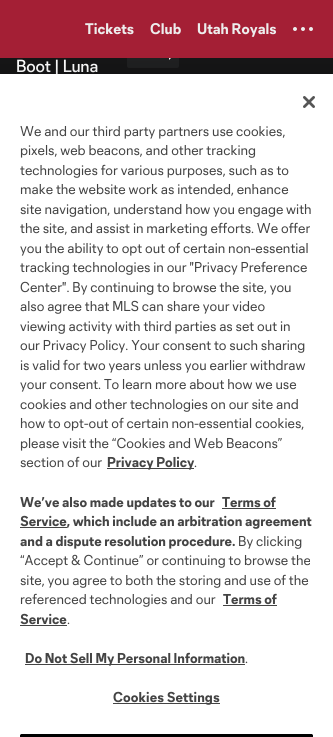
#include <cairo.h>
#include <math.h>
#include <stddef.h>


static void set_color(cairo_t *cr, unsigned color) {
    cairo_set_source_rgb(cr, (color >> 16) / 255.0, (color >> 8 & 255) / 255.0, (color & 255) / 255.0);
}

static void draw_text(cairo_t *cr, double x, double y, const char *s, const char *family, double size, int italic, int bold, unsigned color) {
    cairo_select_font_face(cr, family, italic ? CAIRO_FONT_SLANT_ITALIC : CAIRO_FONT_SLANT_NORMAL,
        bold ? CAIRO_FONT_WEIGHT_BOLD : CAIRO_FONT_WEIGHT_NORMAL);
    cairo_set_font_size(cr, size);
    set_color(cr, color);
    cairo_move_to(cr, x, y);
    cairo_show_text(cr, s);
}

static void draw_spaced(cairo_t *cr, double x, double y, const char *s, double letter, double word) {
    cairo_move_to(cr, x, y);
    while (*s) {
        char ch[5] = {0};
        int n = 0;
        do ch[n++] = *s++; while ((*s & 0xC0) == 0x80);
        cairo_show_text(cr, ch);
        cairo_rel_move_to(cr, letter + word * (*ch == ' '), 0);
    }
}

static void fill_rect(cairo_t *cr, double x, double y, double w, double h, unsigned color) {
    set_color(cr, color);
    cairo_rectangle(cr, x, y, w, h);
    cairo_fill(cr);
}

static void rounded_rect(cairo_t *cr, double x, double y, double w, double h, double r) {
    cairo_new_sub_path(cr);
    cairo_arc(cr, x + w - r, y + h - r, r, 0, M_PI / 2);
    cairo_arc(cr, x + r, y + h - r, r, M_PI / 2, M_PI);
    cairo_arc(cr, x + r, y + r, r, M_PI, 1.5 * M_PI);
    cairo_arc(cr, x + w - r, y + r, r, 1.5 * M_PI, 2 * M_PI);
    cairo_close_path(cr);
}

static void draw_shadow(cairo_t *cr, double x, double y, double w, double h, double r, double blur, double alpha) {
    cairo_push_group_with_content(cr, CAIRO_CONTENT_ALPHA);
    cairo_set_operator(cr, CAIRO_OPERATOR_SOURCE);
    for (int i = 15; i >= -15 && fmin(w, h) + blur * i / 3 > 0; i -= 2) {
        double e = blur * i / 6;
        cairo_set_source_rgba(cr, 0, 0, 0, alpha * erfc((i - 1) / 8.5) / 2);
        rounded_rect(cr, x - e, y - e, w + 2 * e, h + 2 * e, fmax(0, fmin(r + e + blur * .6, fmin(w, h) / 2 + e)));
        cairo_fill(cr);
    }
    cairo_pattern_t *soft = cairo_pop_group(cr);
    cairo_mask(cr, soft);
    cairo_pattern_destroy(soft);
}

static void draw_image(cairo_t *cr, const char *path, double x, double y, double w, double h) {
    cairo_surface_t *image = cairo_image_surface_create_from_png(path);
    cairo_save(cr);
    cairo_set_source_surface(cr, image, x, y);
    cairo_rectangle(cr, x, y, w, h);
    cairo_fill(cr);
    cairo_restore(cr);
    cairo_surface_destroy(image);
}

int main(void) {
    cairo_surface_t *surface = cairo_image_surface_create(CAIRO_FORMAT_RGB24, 333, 737);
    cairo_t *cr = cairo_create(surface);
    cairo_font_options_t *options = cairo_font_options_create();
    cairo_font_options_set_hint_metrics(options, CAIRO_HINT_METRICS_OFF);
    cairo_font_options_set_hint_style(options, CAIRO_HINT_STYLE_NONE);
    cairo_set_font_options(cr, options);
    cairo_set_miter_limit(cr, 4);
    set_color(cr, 0x151516);
    cairo_paint(cr);
    set_color(cr, 0x1F2021);
    rounded_rect(cr, 127, 48, 52, 20, 2);
    cairo_fill(cr);
    set_color(cr, 0xFFFFFF);
    cairo_set_fill_rule(cr, CAIRO_FILL_RULE_EVEN_ODD);
    cairo_new_path(cr);
    cairo_move_to(cr, 169, 55.5);
    cairo_line_to(cr, 169, 60);
    cairo_line_to(cr, 171.5, 57.5);
    cairo_close_path(cr);
    cairo_fill(cr);
    fill_rect(cr, 0, 0, 333, 58, 0xA41F35);
    draw_text(cr, 85, 34, "Tickets", "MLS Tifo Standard", 14, 0, 1, 0xEDEDED);
    draw_text(cr, 150, 34, "Club", "MLS Tifo Standard", 14, 0, 1, 0xEDEDED);
    draw_text(cr, 197, 34, "Utah Royals", "MLS Tifo Standard", 14, 0, 1, 0xEDEDED);
    draw_image(cr, "assets/img1.png", 293, 27, 20, 4);
    cairo_select_font_face(cr, "MLS Tifo Standard Medium", CAIRO_FONT_SLANT_NORMAL, CAIRO_FONT_WEIGHT_NORMAL);
    cairo_set_font_size(cr, 16);
    set_color(cr, 0xFFFFFF);
    draw_spaced(cr, 16, 72, "Boot | Luna", -0.25, 0);
    set_color(cr, 0x000000);
    draw_shadow(cr, 0, 74, 333, 663, 0, 9, 0.2);
    fill_rect(cr, 0, 74, 333, 663, 0xFFFFFF);
    draw_image(cr, "assets/img2.png", 303, 96, 12, 12);
    draw_text(cr, 20, 136, "We and our third party partners use cookies,", "MLS Tifo Standard", 13, 0, 0, 0x444444);
    draw_text(cr, 20, 155, "pixels, web beacons, and other tracking", "MLS Tifo Standard", 13, 0, 0, 0x444444);
    draw_text(cr, 20, 175, "technologies for various purposes, such as to", "MLS Tifo Standard", 13, 0, 0, 0x444444);
    draw_text(cr, 20, 194, "make the website work as intended, enhance", "MLS Tifo Standard", 13, 0, 0, 0x444444);
    draw_text(cr, 20, 214, "site navigation, understand how you engage with", "MLS Tifo Standard", 13, 0, 0, 0x444444);
    draw_text(cr, 20, 233, "the site, and assist in marketing efforts. We offer", "MLS Tifo Standard", 13, 0, 0, 0x444444);
    draw_text(cr, 20, 253, "you the ability to opt out of certain non-essential", "MLS Tifo Standard", 13, 0, 0, 0x444444);
    draw_text(cr, 20, 272, "tracking technologies in our \"Privacy Preference", "MLS Tifo Standard", 13, 0, 0, 0x444444);
    draw_text(cr, 20, 292, "Center\". By continuing to browse the site, you", "MLS Tifo Standard", 13, 0, 0, 0x444444);
    draw_text(cr, 20, 311, "also agree that MLS can share your video", "MLS Tifo Standard", 13, 0, 0, 0x444444);
    draw_text(cr, 20, 331, "viewing activity with third parties as set out in", "MLS Tifo Standard", 13, 0, 0, 0x444444);
    draw_text(cr, 20, 350, "our Privacy Policy. Your consent to such sharing", "MLS Tifo Standard", 13, 0, 0, 0x444444);
    draw_text(cr, 20, 370, "is valid for two years unless you earlier withdraw", "MLS Tifo Standard", 13, 0, 0, 0x444444);
    draw_text(cr, 20, 389, "your consent. To learn more about how we use", "MLS Tifo Standard", 13, 0, 0, 0x444444);
    draw_text(cr, 20, 409, "cookies and other technologies on our site and", "MLS Tifo Standard", 13, 0, 0, 0x444444);
    draw_text(cr, 20, 428, "how to opt-out of certain non-essential cookies,", "MLS Tifo Standard", 13, 0, 0, 0x444444);
    draw_text(cr, 20, 448, "please visit the “Cookies and Web Beacons”", "MLS Tifo Standard", 13, 0, 0, 0x444444);
    draw_text(cr, 20, 467, "section of our", "MLS Tifo Standard", 13, 0, 0, 0x444444);
    fill_rect(cr, 107, 468, 87, 1, 0x444444);
    draw_text(cr, 107, 467, "Privacy Policy", "MLS Tifo Standard", 13, 0, 1, 0x444444);
    draw_text(cr, 194, 467, ".", "MLS Tifo Standard", 13, 0, 0, 0x444444);
    draw_text(cr, 20, 507, "We’ve also made updates to our", "MLS Tifo Standard", 13, 0, 1, 0x444444);
    draw_text(cr, 222, 507, "Terms of", "MLS Tifo Standard", 13, 0, 1, 0x444444);
    fill_rect(cr, 222, 508, 54, 1, 0x444444);
    fill_rect(cr, 20, 527, 47, 1, 0x444444);
    draw_text(cr, 20, 526, "Service, which include an arbitration agreement", "MLS Tifo Standard", 13, 0, 1, 0x444444);
    draw_text(cr, 20, 546, "and a dispute resolution procedure.", "MLS Tifo Standard", 13, 0, 1, 0x444444);
    draw_text(cr, 238, 546, "By clicking", "MLS Tifo Standard", 13, 0, 0, 0x444444);
    draw_text(cr, 20, 565, "“Accept & Continue” or continuing to browse the", "MLS Tifo Standard", 13, 0, 0, 0x444444);
    draw_text(cr, 20, 585, "site, you agree to both the storing and use of the", "MLS Tifo Standard", 13, 0, 0, 0x444444);
    draw_text(cr, 20, 604, "referenced technologies and our", "MLS Tifo Standard", 13, 0, 0, 0x444444);
    draw_text(cr, 223, 604, "Terms of", "MLS Tifo Standard", 13, 0, 1, 0x444444);
    fill_rect(cr, 223, 605, 54, 1, 0x444444);
    draw_text(cr, 20, 624, "Service", "MLS Tifo Standard", 13, 0, 1, 0x444444);
    fill_rect(cr, 20, 625, 47, 1, 0x444444);
    draw_text(cr, 67, 624, ".", "MLS Tifo Standard", 13, 0, 0, 0x444444);
    fill_rect(cr, 25, 664, 220, 1, 0x444444);
    draw_text(cr, 25, 663, "Do Not Sell My Personal Information", "MLS Tifo Standard", 13, 0, 1, 0x444444);
    draw_text(cr, 245, 663, ".", "MLS Tifo Standard", 13, 0, 0, 0x444444);
    fill_rect(cr, 113, 703, 107, 1, 0x444444);
    cairo_select_font_face(cr, "MLS Tifo Standard", CAIRO_FONT_SLANT_NORMAL, CAIRO_FONT_WEIGHT_BOLD);
    draw_spaced(cr, 113, 702, "Cookies Settings", 0.1, 0);
    set_color(cr, 0x000000);
    cairo_new_path(cr);
    cairo_move_to(cr, 22, 734);
    cairo_line_to(cr, 311, 734);
    cairo_curve_to(cr, 312, 734, 313, 735, 313, 736);
    cairo_line_to(cr, 313, 737);
    cairo_line_to(cr, 20, 737);
    cairo_line_to(cr, 20, 736);
    cairo_curve_to(cr, 20, 735, 21, 734, 22, 734);
    cairo_close_path(cr);
    cairo_fill(cr);
    rounded_rect(cr, 20.5, 734.5, 292, 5, 1.5);
    cairo_set_line_width(cr, 1);
    cairo_stroke(cr);
    cairo_surface_write_to_png(surface, "output.png");
    cairo_font_options_destroy(options);
    cairo_destroy(cr);
    cairo_surface_destroy(surface);
    return 0;
}
